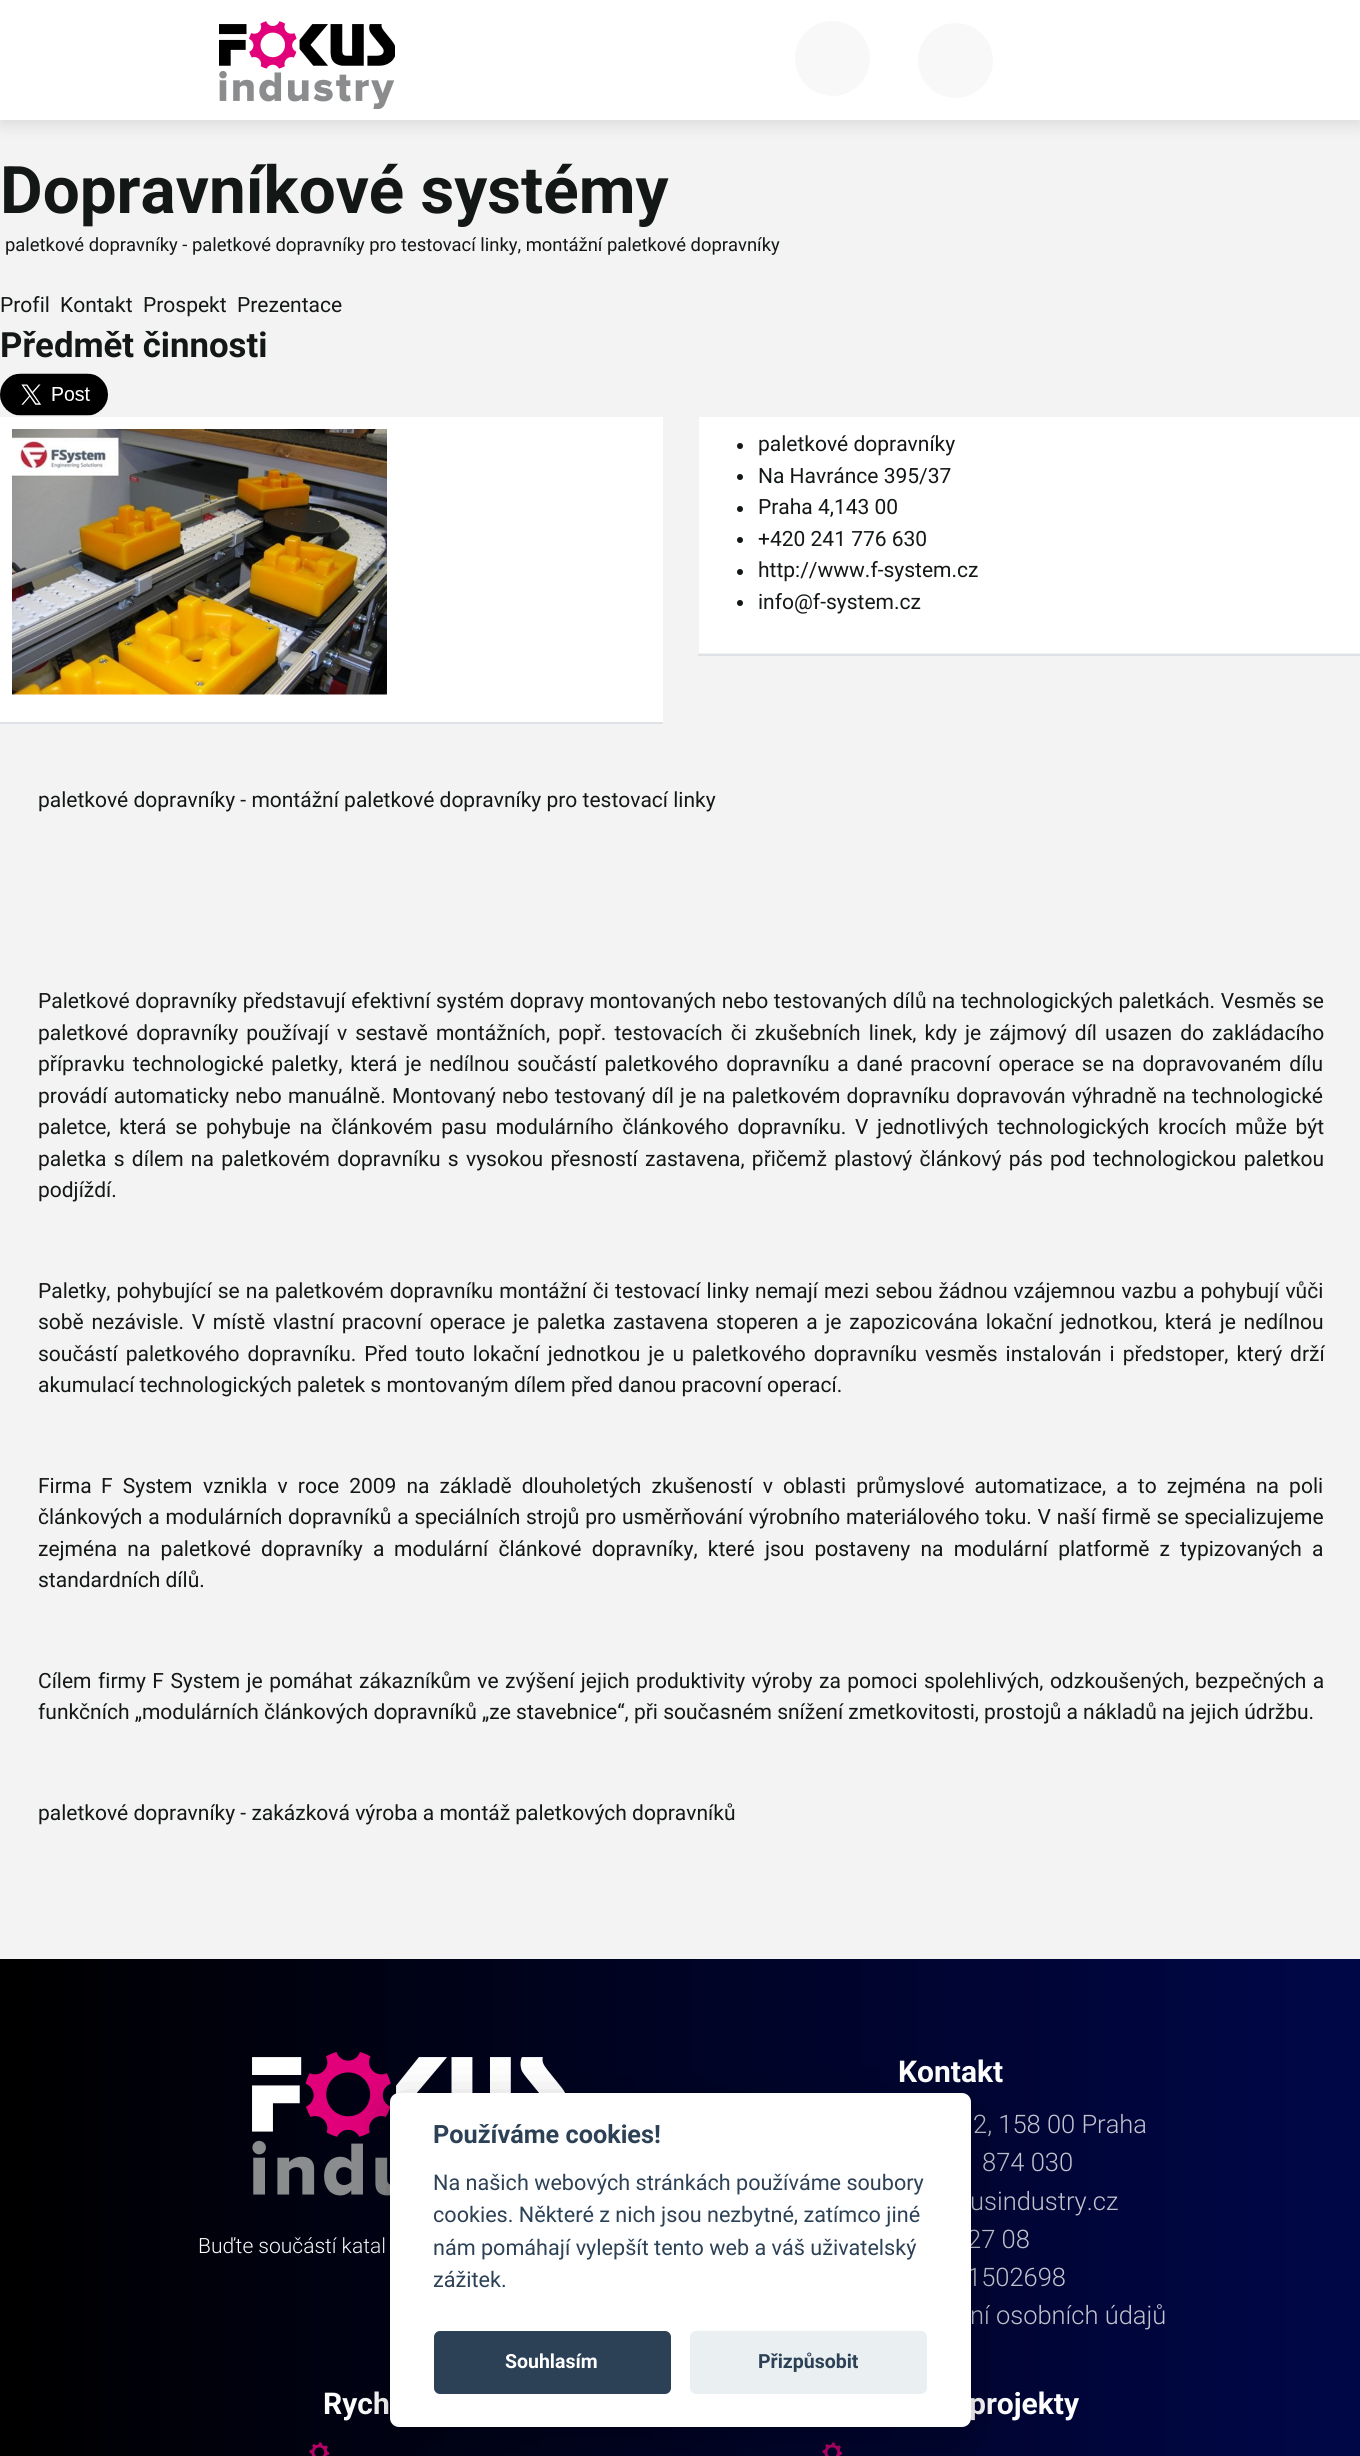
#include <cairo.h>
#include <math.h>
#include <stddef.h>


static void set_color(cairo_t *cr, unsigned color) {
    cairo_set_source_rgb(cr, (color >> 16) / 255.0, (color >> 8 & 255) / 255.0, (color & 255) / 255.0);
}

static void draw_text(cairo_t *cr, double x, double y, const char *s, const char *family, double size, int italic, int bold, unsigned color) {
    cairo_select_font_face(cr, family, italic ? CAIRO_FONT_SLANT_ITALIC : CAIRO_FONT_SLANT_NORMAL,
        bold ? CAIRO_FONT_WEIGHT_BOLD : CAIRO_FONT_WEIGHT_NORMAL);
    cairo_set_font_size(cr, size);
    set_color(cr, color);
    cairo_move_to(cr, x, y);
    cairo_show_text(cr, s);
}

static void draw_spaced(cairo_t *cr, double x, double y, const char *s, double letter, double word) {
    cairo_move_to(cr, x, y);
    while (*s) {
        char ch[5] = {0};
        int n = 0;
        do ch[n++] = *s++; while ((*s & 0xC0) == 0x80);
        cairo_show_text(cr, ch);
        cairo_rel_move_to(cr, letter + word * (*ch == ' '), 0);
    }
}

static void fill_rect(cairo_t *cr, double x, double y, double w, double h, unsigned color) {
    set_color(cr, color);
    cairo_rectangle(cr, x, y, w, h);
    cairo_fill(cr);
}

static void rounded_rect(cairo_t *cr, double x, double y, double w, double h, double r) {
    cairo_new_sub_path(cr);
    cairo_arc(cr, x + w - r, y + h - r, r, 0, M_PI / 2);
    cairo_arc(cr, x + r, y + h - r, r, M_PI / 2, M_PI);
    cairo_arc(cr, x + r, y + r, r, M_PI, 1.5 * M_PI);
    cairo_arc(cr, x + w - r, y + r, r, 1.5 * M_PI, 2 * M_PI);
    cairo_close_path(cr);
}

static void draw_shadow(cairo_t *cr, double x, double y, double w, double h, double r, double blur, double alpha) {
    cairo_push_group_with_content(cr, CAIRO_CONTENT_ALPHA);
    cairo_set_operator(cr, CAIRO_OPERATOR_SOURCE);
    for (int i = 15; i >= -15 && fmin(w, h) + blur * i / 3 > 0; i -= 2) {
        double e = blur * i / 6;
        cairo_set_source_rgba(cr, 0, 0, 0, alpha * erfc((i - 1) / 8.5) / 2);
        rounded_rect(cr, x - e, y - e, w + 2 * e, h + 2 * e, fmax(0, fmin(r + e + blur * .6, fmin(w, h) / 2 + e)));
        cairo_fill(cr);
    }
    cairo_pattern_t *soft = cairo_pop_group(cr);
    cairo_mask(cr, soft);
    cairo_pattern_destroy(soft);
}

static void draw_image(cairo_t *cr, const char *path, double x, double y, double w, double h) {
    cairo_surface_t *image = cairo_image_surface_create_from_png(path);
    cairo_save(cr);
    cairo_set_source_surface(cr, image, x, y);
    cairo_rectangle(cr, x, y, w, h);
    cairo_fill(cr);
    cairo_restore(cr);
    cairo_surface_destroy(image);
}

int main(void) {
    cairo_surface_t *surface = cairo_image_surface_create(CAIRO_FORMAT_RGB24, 1360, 2456);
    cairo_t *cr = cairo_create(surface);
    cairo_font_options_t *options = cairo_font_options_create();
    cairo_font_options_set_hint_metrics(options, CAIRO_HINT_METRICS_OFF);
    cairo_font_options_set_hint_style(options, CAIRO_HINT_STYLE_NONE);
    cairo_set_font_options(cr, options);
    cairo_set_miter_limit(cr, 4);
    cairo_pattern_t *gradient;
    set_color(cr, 0xF3F3F3);
    cairo_paint(cr);
    set_color(cr, 0x000000);
    draw_shadow(cr, 0, 5, 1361, 120, 0, 7.5, 0.1);
    fill_rect(cr, 0, 0, 1360, 120, 0xFFFFFF);
    draw_image(cr, "assets/img1.png", 219, 21, 176, 88);
    set_color(cr, 0xF8F8F8);
    cairo_arc(cr, 832.5, 58.5, 37.5, 0, 2 * M_PI);
    cairo_fill(cr);
    cairo_arc(cr, 955.5, 60.5, 36.5, 0, 2 * M_PI);
    cairo_fill_preserve(cr);
    cairo_stroke(cr);
    draw_text(cr, 0, 213, "Dopravníkové systémy", "Roboto", 65.6, 0, 1, 0x131716);
    draw_text(cr, 5, 251, "paletkové dopravníky - paletkové dopravníky pro testovací linky, montážní paletkové dopravníky", "Roboto", 18.4, 0, 0, 0x131716);
    draw_text(cr, 0, 312, "Profil", "Roboto", 21, 0, 0, 0x131716);
    draw_text(cr, 60, 312, "Kontakt", "Roboto", 21, 0, 0, 0x131716);
    draw_text(cr, 143, 312, "Prospekt", "Roboto", 21, 0, 0, 0x131716);
    draw_text(cr, 237, 312, "Prezentace", "Roboto", 21, 0, 0, 0x131716);
    draw_text(cr, 0, 357, "Předmět činnosti", "Roboto", 34.75, 0, 1, 0x131716);
    draw_image(cr, "assets/img2.png", 0, 373, 108, 43);
    fill_rect(cr, 0, 417, 663, 305, 0xFFFFFF);
    fill_rect(cr, 0, 722, 663, 2, 0xDEE2E6);
    draw_image(cr, "assets/img3.png", 12, 429, 375, 266);
    fill_rect(cr, 699, 417, 661, 236, 0xFFFFFF);
    fill_rect(cr, 698, 654, 662, 2, 0xDEE2E6);
    set_color(cr, 0x131716);
    cairo_arc(cr, 740, 446, 3, 0, 2 * M_PI);
    cairo_fill(cr);
    draw_text(cr, 758, 451, "paletkové dopravníky", "Roboto", 21, 0, 0, 0x131716);
    cairo_new_path(cr);
    cairo_arc(cr, 740, 477, 3, 0, 2 * M_PI);
    cairo_fill(cr);
    draw_text(cr, 758, 483, "Na Havránce 395/37", "Roboto", 21, 0, 0, 0x131716);
    cairo_new_path(cr);
    cairo_arc(cr, 740, 509, 3, 0, 2 * M_PI);
    cairo_fill(cr);
    draw_text(cr, 758, 514, "Praha 4,143 00", "Roboto", 21, 0, 0, 0x131716);
    cairo_new_path(cr);
    cairo_arc(cr, 740, 540, 3, 0, 2 * M_PI);
    cairo_fill(cr);
    draw_text(cr, 758, 546, "+420 241 776 630", "Roboto", 21, 0, 0, 0x131716);
    cairo_new_path(cr);
    cairo_arc(cr, 740, 572, 3, 0, 2 * M_PI);
    cairo_fill(cr);
    draw_text(cr, 758, 577, "http://www.f-system.cz", "Roboto", 21, 0, 0, 0x131716);
    cairo_new_path(cr);
    cairo_arc(cr, 740, 603, 3, 0, 2 * M_PI);
    cairo_fill(cr);
    draw_text(cr, 758, 609, "info@f-system.cz", "Roboto", 21, 0, 0, 0x131716);
    draw_text(cr, 38, 807, "paletkové dopravníky - montážní paletkové dopravníky pro testovací linky", "Roboto", 21, 0, 0, 0x131716);
    draw_spaced(cr, 38, 1008, "Paletkové dopravníky představují efektivní systém dopravy montovaných nebo testovaných dílů na technologických paletkách. Vesměs se", 0, 0.4);
    draw_spaced(cr, 38, 1040, "paletkové dopravníky používají v sestavě montážních, popř. testovacích či zkušebních linek, kdy je zájmový díl usazen do zakládacího", 0, 2.9);
    draw_spaced(cr, 38, 1071, "přípravku technologické paletky, která je nedílnou součástí paletkového dopravníku a dané pracovní operace se na dopravovaném dílu", 0, 2.6);
    draw_spaced(cr, 38, 1103, "provádí automaticky nebo manuálně. Montovaný nebo testovaný díl je na paletkovém dopravníku dopravován výhradně na technologické", 0, 1);
    draw_spaced(cr, 38, 1134, "paletce, která se pohybuje na článkovém pasu modulárního článkového dopravníku. V jednotlivých technologických krocích může být", 0, 3.5);
    draw_spaced(cr, 38, 1166, "paletka s dílem na paletkovém dopravníku s vysokou přesností zastavena, přičemž plastový článkový pás pod technologickou paletkou", 0, 2.1);
    draw_text(cr, 38, 1197, "podjíždí.", "Roboto", 21, 0, 0, 0x131716);
    draw_spaced(cr, 38, 1298, "Paletky, pohybující se na paletkovém dopravníku montážní či testovací linky nemají mezi sebou žádnou vzájemnou vazbu a pohybují vůči", 0, 0.9);
    draw_spaced(cr, 38, 1329, "sobě nezávisle. V místě vlastní pracovní operace je paletka zastavena stoperen a je zapozicována lokační jednotkou, která je nedílnou", 0, 2.5);
    draw_spaced(cr, 38, 1361, "součástí paletkového dopravníku. Před touto lokační jednotkou je u paletkového dopravníku vesměs instalován i předstoper, který drží", 0, 2.75);
    draw_text(cr, 38, 1392, "akumulací technologických paletek s montovaným dílem před danou pracovní operací.", "Roboto", 21, 0, 0, 0x131716);
    draw_text(cr, 38, 1493, "Firma", "Roboto", 21, 0, 0, 0x131716);
    draw_spaced(cr, 101, 1493, "F System", 0, 4.9);
    draw_spaced(cr, 203, 1493, "vznikla v roce 2009 na základě dlouholetých zkušeností v oblasti průmyslové automatizace, a to zejména na poli", 0, 4.9);
    draw_spaced(cr, 38, 1524, "článkových a modulárních dopravníků a speciálních strojů pro usměrňování výrobního materiálového toku. V naší firmě se specializujeme", 0, 0.6);
    draw_spaced(cr, 38, 1556, "zejména na paletkové dopravníky a", 0, 5);
    draw_spaced(cr, 394, 1556, "modulární článkové dopravníky, které jsou postaveny na modulární platformě z typizovaných a", 0, 5);
    draw_text(cr, 38, 1587, "standardních dílů.", "Roboto", 21, 0, 0, 0x131716);
    draw_spaced(cr, 38, 1688, "Cílem firmy F System je pomáhat zákazníkům ve zvýšení jejich produktivity výroby za pomoci spolehlivých, odzkoušených, bezpečných a", 0, 1.25);
    draw_text(cr, 38, 1719, "funkčních „modulárních článkových dopravníků „ze stavebnice“, při současném snížení zmetkovitosti, prostojů a nákladů na jejich údržbu.", "Roboto", 21, 0, 0, 0x131716);
    draw_text(cr, 38, 1820, "paletkové dopravníky - zakázková výroba a montáž paletkových dopravníků", "Roboto", 21, 0, 0, 0x131716);
    gradient = cairo_pattern_create_linear(0, 2405, 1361, 2405);
    cairo_pattern_add_color_stop_rgba(gradient, 0, 0, 0, 0, 1);
    cairo_pattern_add_color_stop_rgba(gradient, 1, 0, 0.027, 0.282, 1);
    cairo_set_source(cr, gradient);
    cairo_pattern_destroy(gradient);
    cairo_rectangle(cr, 0, 1959, 1360, 497);
    cairo_fill(cr);
    draw_image(cr, "assets/img4.png", 252, 2052, 313, 144);
    draw_text(cr, 198, 2253, "Buďte součástí katal", "Roboto Light", 21, 0, 0, 0xFFFFFF);
    draw_text(cr, 898, 2082, "Kontakt", "Roboto", 30, 0, 1, 0xFFFFFF);
    draw_text(cr, 973, 2133, "2, 158 00 Praha", "Roboto Light", 25.5, 0, 0, 0xC2C3CD);
    draw_text(cr, 982, 2171, "874 030", "Roboto Light", 25.5, 0, 0, 0xC2C3CD);
    draw_text(cr, 970, 2210, "usindustry.cz", "Roboto Light", 25.5, 0, 0, 0xC2C3CD);
    draw_text(cr, 967, 2248, "27 08", "Roboto Light", 25.5, 0, 0, 0xC2C3CD);
    draw_text(cr, 967, 2286, "1502698", "Roboto Light", 25.5, 0, 0, 0xC2C3CD);
    draw_text(cr, 970, 2324, "ní osobních údajů", "Roboto Light", 25.5, 0, 0, 0xC2C3CD);
    draw_text(cr, 323, 2414, "Rych", "Roboto", 30, 0, 1, 0xFFFFFF);
    draw_image(cr, "assets/img5.png", 309, 2442, 21, 14);
    draw_text(cr, 969, 2414, "projekty", "Roboto", 30, 0, 1, 0xFFFFFF);
    draw_image(cr, "assets/img6.png", 822, 2442, 21, 14);
    set_color(cr, 0x020203);
    draw_shadow(cr, 390, 2108, 581, 334, 9, 22.5, 0.28);
    set_color(cr, 0xFFFFFF);
    rounded_rect(cr, 390, 2093, 581, 334, 9);
    cairo_fill(cr);
    draw_text(cr, 433, 2143, "Používáme cookies!", "Roboto", 25.25, 0, 1, 0x2D4156);
    draw_text(cr, 433, 2190, "Na našich webových stránkách používáme soubory", "Roboto", 21.6, 0, 0, 0x2D4156);
    draw_text(cr, 433, 2222, "cookies. Některé z nich jsou nezbytné, zatímco jiné", "Roboto", 21.6, 0, 0, 0x2D4156);
    draw_text(cr, 433, 2255, "nám pomáhají vylepšít tento web a váš uživatelský", "Roboto", 21.6, 0, 0, 0x2D4156);
    draw_text(cr, 433, 2287, "zážitek.", "Roboto", 21.6, 0, 0, 0x2D4156);
    rounded_rect(cr, 434, 2331, 237, 63, 6);
    cairo_fill(cr);
    draw_text(cr, 505, 2368, "Souhlasím", "Roboto", 19.5, 0, 1, 0xFFFFFF);
    set_color(cr, 0xEAEFF2);
    rounded_rect(cr, 690, 2331, 237, 63, 6);
    cairo_fill(cr);
    draw_text(cr, 758, 2368, "Přizpůsobit", "Roboto", 19.5, 0, 1, 0x2D4156);
    cairo_surface_write_to_png(surface, "output.png");
    cairo_font_options_destroy(options);
    cairo_destroy(cr);
    cairo_surface_destroy(surface);
    return 0;
}
